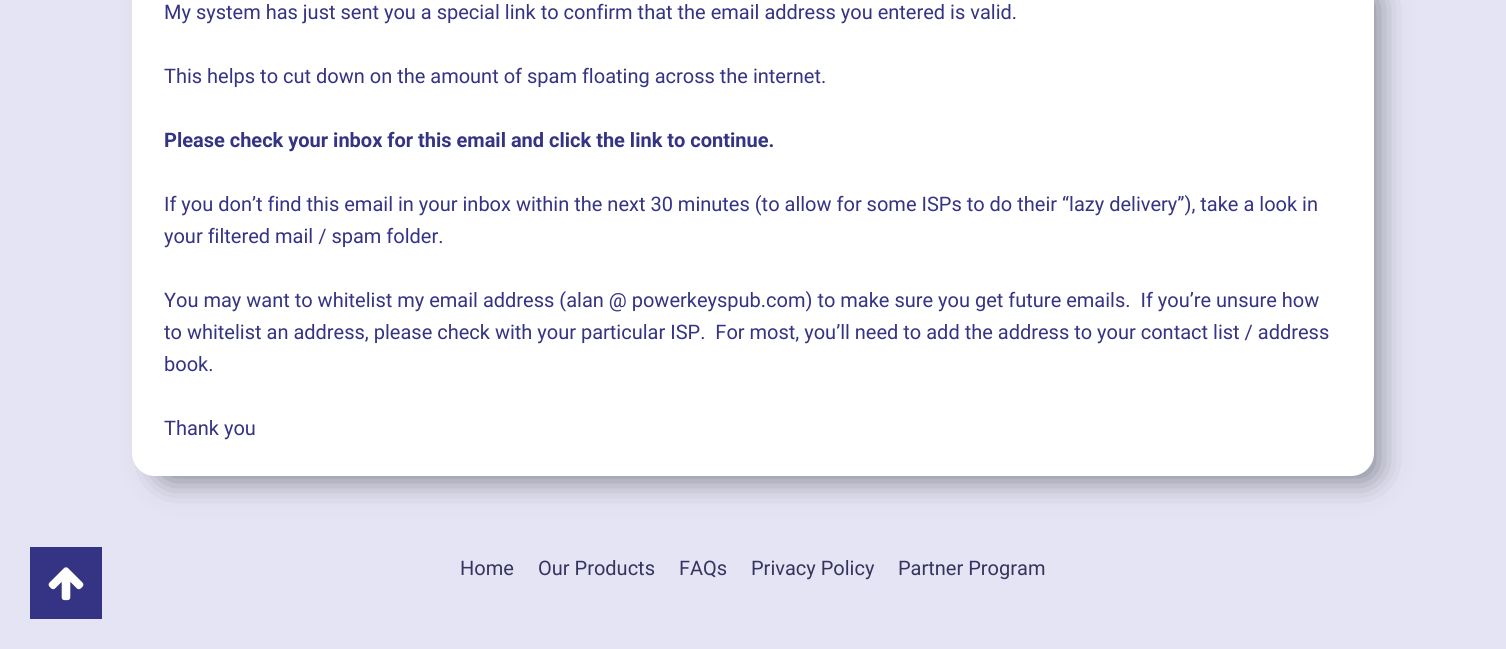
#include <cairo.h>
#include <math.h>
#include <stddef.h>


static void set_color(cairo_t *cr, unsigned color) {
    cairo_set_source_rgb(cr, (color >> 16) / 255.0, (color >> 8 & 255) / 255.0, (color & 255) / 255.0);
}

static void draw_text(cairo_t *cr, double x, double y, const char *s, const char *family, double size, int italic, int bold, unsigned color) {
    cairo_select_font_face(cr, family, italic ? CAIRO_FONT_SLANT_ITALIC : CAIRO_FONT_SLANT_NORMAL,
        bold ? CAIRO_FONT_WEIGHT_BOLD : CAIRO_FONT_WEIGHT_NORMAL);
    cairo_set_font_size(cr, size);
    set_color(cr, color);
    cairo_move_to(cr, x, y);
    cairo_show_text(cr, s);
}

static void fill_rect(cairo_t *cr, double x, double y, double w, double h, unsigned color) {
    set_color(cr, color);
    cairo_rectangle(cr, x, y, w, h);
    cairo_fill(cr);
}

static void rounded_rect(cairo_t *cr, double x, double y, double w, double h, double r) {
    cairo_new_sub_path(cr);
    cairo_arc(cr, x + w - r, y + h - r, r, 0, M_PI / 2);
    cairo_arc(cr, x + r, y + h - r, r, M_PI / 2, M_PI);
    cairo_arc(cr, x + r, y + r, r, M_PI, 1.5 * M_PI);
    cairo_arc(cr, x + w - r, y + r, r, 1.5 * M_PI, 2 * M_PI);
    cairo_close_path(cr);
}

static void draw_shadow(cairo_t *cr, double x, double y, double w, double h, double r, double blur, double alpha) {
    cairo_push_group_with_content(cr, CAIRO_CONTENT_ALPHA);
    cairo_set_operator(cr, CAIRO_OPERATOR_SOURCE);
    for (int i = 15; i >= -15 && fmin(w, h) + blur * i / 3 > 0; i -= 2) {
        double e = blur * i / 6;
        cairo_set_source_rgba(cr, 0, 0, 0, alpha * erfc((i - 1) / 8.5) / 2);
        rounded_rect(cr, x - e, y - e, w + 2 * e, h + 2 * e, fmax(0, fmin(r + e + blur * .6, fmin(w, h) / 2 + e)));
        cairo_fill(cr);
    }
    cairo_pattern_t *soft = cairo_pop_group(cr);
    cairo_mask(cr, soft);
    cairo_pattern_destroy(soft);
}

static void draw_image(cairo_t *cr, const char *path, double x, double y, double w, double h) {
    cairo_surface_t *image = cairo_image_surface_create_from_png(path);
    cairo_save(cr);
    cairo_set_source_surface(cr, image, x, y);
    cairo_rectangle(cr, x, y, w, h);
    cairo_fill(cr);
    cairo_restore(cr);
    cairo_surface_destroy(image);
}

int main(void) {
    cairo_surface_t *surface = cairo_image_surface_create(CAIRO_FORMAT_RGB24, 1506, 649);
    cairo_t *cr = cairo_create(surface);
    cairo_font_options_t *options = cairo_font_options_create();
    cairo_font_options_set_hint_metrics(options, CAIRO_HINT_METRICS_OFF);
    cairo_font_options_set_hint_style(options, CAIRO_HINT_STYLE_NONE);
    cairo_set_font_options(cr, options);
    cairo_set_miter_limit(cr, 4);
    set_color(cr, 0xE5E4F4);
    cairo_paint(cr);
    fill_rect(cr, 30, 547, 72, 72, 0x343384);
    draw_image(cr, "assets/img1.png", 48, 567, 36, 34);
    set_color(cr, 0x1A202C);
    draw_shadow(cr, 157, -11, 1222, 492, 13, 15, 0.48);
    set_color(cr, 0xFFFFFF);
    rounded_rect(cr, 132, -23, 1242, 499, 23);
    cairo_fill(cr);
    draw_text(cr, 164, 19, "My system has just sent you a special link to confirm that the email address you entered is valid.", "Roboto", 20, 0, 0, 0x343384);
    draw_text(cr, 164, 83, "This helps to cut down on the amount of spam floating across the internet.", "Roboto", 20, 0, 0, 0x343384);
    draw_text(cr, 164, 147, "Please check your inbox for this email and click the link to continue.", "Roboto", 20, 0, 1, 0x343384);
    draw_text(cr, 164, 211, "If you don’t find this email in your inbox within the next 30 minutes (to allow for some ISPs to do their “lazy delivery”), take a look in", "Roboto", 20, 0, 0, 0x343384);
    draw_text(cr, 164, 243, "your filtered mail / spam folder.", "Roboto", 20, 0, 0, 0x343384);
    draw_text(cr, 164, 307, "You may want to whitelist my email address (alan @ powerkeyspub.com) to make sure you get future emails.  If you’re unsure how", "Roboto", 20, 0, 0, 0x343384);
    draw_text(cr, 164, 339, "to whitelist an address, please check with your particular ISP.  For most, you’ll need to add the address to your contact list / address", "Roboto", 20, 0, 0, 0x343384);
    draw_text(cr, 164, 371, "book.", "Roboto", 20, 0, 0, 0x343384);
    draw_text(cr, 164, 435, "Thank you", "Roboto", 20, 0, 0, 0x343384);
    draw_text(cr, 460, 575, "Home", "Roboto", 20, 0, 0, 0x36345E);
    draw_text(cr, 538, 575, "Our Products", "Roboto", 20, 0, 0, 0x36345E);
    draw_text(cr, 679, 575, "FAQs", "Roboto", 20, 0, 0, 0x36345E);
    draw_text(cr, 751, 575, "Privacy Policy", "Roboto", 20, 0, 0, 0x36345E);
    draw_text(cr, 898, 575, "Partner Program", "Roboto", 20, 0, 0, 0x36345E);
    cairo_surface_write_to_png(surface, "output.png");
    cairo_font_options_destroy(options);
    cairo_destroy(cr);
    cairo_surface_destroy(surface);
    return 0;
}
